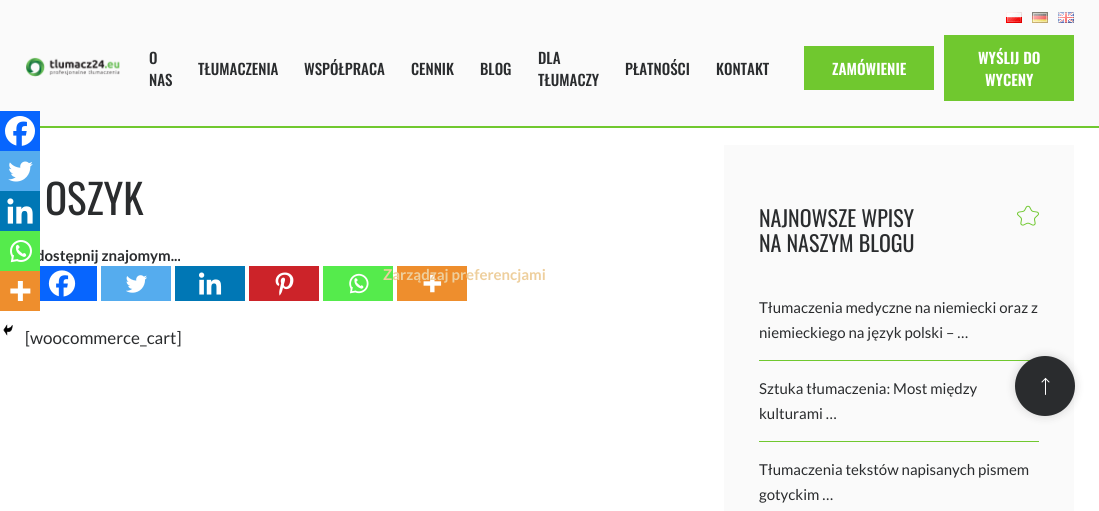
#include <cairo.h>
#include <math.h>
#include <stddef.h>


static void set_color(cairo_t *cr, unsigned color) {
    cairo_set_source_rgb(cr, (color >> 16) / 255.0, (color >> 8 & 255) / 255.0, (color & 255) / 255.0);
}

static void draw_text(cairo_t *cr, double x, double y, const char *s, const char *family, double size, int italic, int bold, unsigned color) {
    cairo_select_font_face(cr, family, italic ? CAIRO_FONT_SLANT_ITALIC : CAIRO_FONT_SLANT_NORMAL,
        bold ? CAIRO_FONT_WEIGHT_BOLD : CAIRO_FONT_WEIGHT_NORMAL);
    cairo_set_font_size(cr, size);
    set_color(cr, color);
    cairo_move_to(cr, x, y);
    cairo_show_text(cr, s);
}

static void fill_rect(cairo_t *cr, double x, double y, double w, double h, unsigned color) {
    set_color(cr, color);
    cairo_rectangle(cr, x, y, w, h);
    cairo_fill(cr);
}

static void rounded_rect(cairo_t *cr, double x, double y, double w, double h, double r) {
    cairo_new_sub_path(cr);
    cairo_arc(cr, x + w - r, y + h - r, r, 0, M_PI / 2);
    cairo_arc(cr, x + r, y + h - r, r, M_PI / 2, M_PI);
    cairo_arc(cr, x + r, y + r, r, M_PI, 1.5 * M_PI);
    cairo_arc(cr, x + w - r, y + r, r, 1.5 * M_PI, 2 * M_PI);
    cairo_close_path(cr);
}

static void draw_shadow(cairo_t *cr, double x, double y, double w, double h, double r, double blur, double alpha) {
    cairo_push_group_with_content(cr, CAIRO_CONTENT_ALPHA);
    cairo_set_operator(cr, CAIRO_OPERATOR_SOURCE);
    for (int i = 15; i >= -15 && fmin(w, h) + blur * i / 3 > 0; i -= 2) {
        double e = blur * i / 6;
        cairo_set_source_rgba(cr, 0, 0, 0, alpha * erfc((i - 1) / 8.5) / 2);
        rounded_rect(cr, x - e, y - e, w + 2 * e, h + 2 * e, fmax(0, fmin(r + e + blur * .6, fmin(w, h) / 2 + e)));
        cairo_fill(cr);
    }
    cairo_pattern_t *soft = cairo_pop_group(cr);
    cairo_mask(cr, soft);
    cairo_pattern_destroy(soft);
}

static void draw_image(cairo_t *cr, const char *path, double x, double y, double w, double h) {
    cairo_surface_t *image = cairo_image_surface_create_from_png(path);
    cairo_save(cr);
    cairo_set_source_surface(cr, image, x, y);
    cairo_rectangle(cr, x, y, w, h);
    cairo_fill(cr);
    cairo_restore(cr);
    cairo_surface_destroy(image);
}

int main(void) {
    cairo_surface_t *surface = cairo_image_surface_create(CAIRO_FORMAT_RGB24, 1099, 511);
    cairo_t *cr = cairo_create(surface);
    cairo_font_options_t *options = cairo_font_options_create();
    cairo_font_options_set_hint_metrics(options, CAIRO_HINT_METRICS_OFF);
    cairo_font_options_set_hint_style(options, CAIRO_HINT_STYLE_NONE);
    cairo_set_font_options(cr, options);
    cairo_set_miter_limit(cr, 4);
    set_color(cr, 0xFFFFFF);
    cairo_paint(cr);
    fill_rect(cr, 0, 0, 1099, 126, 0xFAFAFA);
    fill_rect(cr, 40, 126, 1059, 2, 0x70C82F);
    draw_image(cr, "assets/img1.png", 1006, 12, 16, 11);
    draw_image(cr, "assets/img2.png", 1032, 12, 16, 11);
    draw_image(cr, "assets/img3.png", 1058, 12, 16, 11);
    draw_image(cr, "assets/img4.png", 26, 57, 94, 20);
    draw_text(cr, 149, 64, "O", "Oswald Medium", 15, 0, 0, 0x2A2C2E);
    draw_text(cr, 149, 86, "NAS", "Oswald Medium", 15, 0, 0, 0x2A2C2E);
    draw_text(cr, 198, 75, "TŁUMACZENIA", "Oswald Medium", 15, 0, 0, 0x2A2C2E);
    draw_text(cr, 304, 75, "WSPÓŁPRACA", "Oswald Medium", 15, 0, 0, 0x2A2C2E);
    draw_text(cr, 411, 75, "CENNIK", "Oswald Medium", 15, 0, 0, 0x2A2C2E);
    draw_text(cr, 480, 75, "BLOG", "Oswald Medium", 15, 0, 0, 0x2A2C2E);
    draw_text(cr, 538, 64, "DLA", "Oswald Medium", 15, 0, 0, 0x2A2C2E);
    draw_text(cr, 538, 86, "TŁUMACZY", "Oswald Medium", 15, 0, 0, 0x2A2C2E);
    draw_text(cr, 625, 75, "PŁATNOŚCI", "Oswald Medium", 15, 0, 0, 0x2A2C2E);
    draw_text(cr, 716, 75, "KONTAKT", "Oswald Medium", 15, 0, 0, 0x2A2C2E);
    fill_rect(cr, 804, 46, 130, 44, 0x70C82F);
    draw_text(cr, 832, 75, "ZAMÓWIENIE", "Oswald SemiBold", 15, 0, 0, 0xFFFFFF);
    fill_rect(cr, 944, 35, 130, 66, 0x70C82F);
    draw_text(cr, 978, 64, "WYŚLIJ DO", "Oswald SemiBold", 15, 0, 0, 0xFFFFFF);
    draw_text(cr, 985, 86, "WYCENY", "Oswald SemiBold", 15, 0, 0, 0xFFFFFF);
    fill_rect(cr, 0, 111, 40, 40, 0x0765FE);
    draw_image(cr, "assets/img5.png", 5, 116, 30, 30);
    fill_rect(cr, 0, 151, 40, 40, 0x55ACEE);
    draw_image(cr, "assets/img6.png", 8, 161, 25, 21);
    fill_rect(cr, 0, 191, 40, 40, 0x0077B5);
    draw_image(cr, "assets/img7.png", 7, 198, 26, 26);
    draw_text(cr, 36, 261, "dostępnij znajomym...", "Lato", 15, 0, 1, 0x2A2C2E);
    fill_rect(cr, 0, 231, 40, 40, 0x55EB4C);
    draw_image(cr, "assets/img8.png", 10, 240, 22, 23);
    fill_rect(cr, 0, 271, 40, 40, 0xEE8E2D);
    draw_image(cr, "assets/img9.png", 10, 281, 21, 20);
    draw_image(cr, "assets/img10.png", 3, 324, 10, 12);
    draw_text(cr, 45, 215, "OSZYK", "Oswald", 41, 0, 0, 0x2A2C2E);
    fill_rect(cr, 40, 266, 57, 35, 0x0765FE);
    draw_image(cr, "assets/img11.png", 48, 270, 28, 27);
    fill_rect(cr, 101, 266, 70, 35, 0x55ACEE);
    draw_image(cr, "assets/img12.png", 126, 275, 21, 18);
    fill_rect(cr, 175, 266, 70, 35, 0x0077B5);
    draw_image(cr, "assets/img13.png", 199, 272, 23, 23);
    fill_rect(cr, 249, 266, 70, 35, 0xCC2329);
    draw_image(cr, "assets/img14.png", 275, 272, 19, 24);
    fill_rect(cr, 323, 266, 70, 35, 0x55EB4C);
    draw_image(cr, "assets/img15.png", 349, 273, 20, 21);
    fill_rect(cr, 397, 266, 70, 35, 0xEE8E2D);
    draw_image(cr, "assets/img16.png", 423, 274, 19, 19);
    draw_text(cr, 25, 344, "[woocommerce_cart]", "Lato", 17, 0, 0, 0x2A2C2E);
    fill_rect(cr, 724, 145, 350, 366, 0xFAFAFA);
    draw_text(cr, 759, 227, "NAJNOWSZE WPISY", "Oswald", 22, 0, 0, 0x2A2C2E);
    draw_image(cr, "assets/img17.png", 1017, 205, 22, 21);
    draw_text(cr, 759, 252, "NA NASZYM BLOGU", "Oswald", 22, 0, 0, 0x2A2C2E);
    fill_rect(cr, 759, 360, 271, 1, 0x70C82F);
    draw_text(cr, 759, 313, "Tłumaczenia medyczne na niemiecki oraz z", "Lato", 15, 0, 0, 0x2A2C2E);
    draw_text(cr, 759, 338, "niemieckiego na język polski – …", "Lato", 15, 0, 0, 0x2A2C2E);
    fill_rect(cr, 759, 441, 280, 1, 0x70C82F);
    draw_text(cr, 759, 394, "Sztuka tłumaczenia: Most między", "Lato", 15, 0, 0, 0x2A2C2E);
    draw_text(cr, 759, 419, "kulturami …", "Lato", 15, 0, 0, 0x2A2C2E);
    draw_text(cr, 759, 475, "Tłumaczenia tekstów napisanych pismem", "Lato", 15, 0, 0, 0x2A2C2E);
    draw_text(cr, 759, 500, "gotyckim …", "Lato", 15, 0, 0, 0x2A2C2E);
    draw_text(cr, 383, 280, "Zarządzaj preferencjami", "Lato", 15, 0, 1, 0xEECF9D);
    set_color(cr, 0x000000);
    draw_shadow(cr, 1015, 356, 60, 60, 30, 5, 0.15);
    set_color(cr, 0x2A2C2E);
    cairo_arc(cr, 1045, 386, 30, 0, 2 * M_PI);
    cairo_fill(cr);
    draw_image(cr, "assets/img18.png", 1041, 377, 9, 18);
    cairo_surface_write_to_png(surface, "output.png");
    cairo_font_options_destroy(options);
    cairo_destroy(cr);
    cairo_surface_destroy(surface);
    return 0;
}
